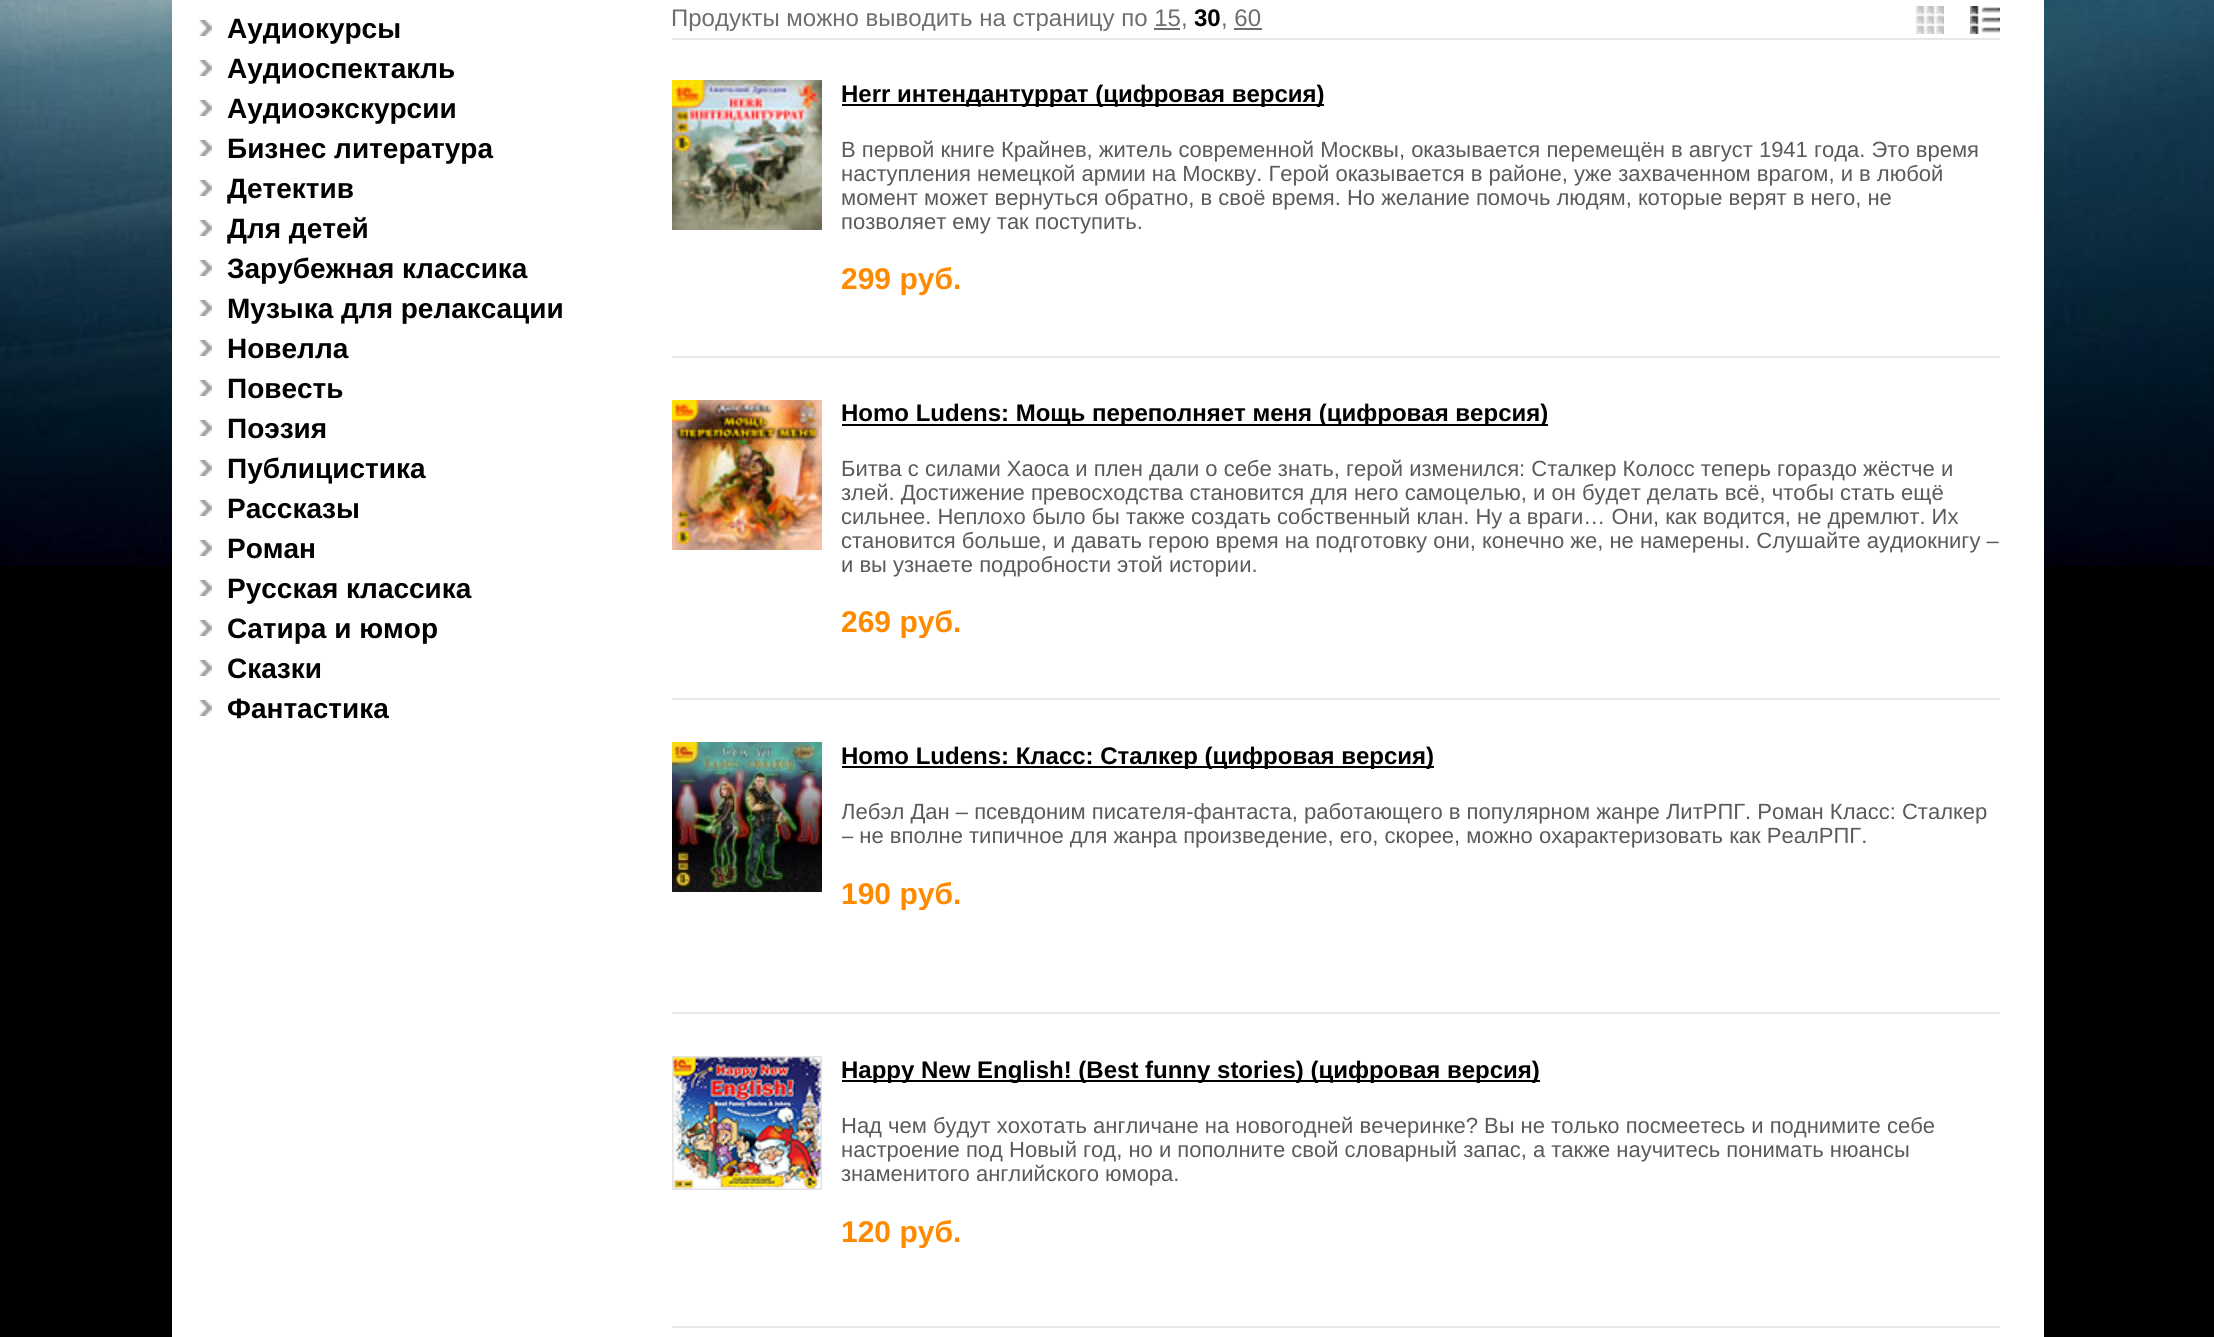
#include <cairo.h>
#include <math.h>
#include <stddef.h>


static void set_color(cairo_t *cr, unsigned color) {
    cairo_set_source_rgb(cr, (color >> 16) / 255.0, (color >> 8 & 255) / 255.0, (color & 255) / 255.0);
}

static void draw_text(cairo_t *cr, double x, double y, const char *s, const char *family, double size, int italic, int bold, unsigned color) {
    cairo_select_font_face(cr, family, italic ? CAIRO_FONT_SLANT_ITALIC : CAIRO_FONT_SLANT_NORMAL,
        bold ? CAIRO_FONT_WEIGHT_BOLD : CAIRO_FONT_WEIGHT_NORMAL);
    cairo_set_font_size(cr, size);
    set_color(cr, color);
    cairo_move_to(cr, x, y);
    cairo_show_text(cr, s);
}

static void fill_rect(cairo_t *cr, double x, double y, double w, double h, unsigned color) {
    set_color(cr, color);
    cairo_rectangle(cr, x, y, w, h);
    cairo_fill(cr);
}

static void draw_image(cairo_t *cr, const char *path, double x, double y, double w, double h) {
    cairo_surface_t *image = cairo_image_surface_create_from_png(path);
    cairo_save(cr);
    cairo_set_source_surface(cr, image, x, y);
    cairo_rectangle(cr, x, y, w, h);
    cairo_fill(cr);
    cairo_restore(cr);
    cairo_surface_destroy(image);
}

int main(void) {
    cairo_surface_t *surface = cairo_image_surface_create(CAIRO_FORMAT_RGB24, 2214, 1337);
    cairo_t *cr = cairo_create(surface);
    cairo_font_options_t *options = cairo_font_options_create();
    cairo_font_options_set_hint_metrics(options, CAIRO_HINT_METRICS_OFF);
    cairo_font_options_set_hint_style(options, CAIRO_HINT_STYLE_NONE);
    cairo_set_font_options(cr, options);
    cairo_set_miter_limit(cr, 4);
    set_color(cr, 0x000000);
    cairo_paint(cr);
    draw_image(cr, "assets/img1.png", 0, 0, 2214, 566);
    fill_rect(cr, 172, 0, 1872, 1337, 0xFFFFFF);
    draw_image(cr, "assets/img2.png", 199, 20, 13, 16);
    draw_text(cr, 227, 38, "Аудиокурсы", "Liberation Sans", 28, 0, 1, 0x000000);
    draw_image(cr, "assets/img2.png", 199, 60, 13, 16);
    draw_text(cr, 227, 78, "Аудиоспектакль", "Liberation Sans", 28, 0, 1, 0x000000);
    draw_image(cr, "assets/img2.png", 199, 100, 13, 16);
    draw_text(cr, 227, 118, "Аудиоэкскурсии", "Liberation Sans", 28, 0, 1, 0x000000);
    draw_image(cr, "assets/img2.png", 199, 140, 13, 16);
    draw_text(cr, 227, 158, "Бизнес литература", "Liberation Sans", 28, 0, 1, 0x000000);
    draw_image(cr, "assets/img2.png", 199, 180, 13, 16);
    draw_text(cr, 227, 198, "Детектив", "Liberation Sans", 28, 0, 1, 0x000000);
    draw_image(cr, "assets/img2.png", 199, 220, 13, 16);
    draw_text(cr, 227, 238, "Для детей", "Liberation Sans", 28, 0, 1, 0x000000);
    draw_image(cr, "assets/img2.png", 199, 260, 13, 16);
    draw_text(cr, 227, 278, "Зарубежная классика", "Liberation Sans", 28, 0, 1, 0x000000);
    draw_image(cr, "assets/img2.png", 199, 300, 13, 16);
    draw_text(cr, 227, 318, "Музыка для релаксации", "Liberation Sans", 28, 0, 1, 0x000000);
    draw_image(cr, "assets/img2.png", 199, 340, 13, 16);
    draw_text(cr, 227, 358, "Новелла", "Liberation Sans", 28, 0, 1, 0x000000);
    draw_image(cr, "assets/img2.png", 199, 380, 13, 16);
    draw_text(cr, 227, 398, "Повесть", "Liberation Sans", 28, 0, 1, 0x000000);
    draw_image(cr, "assets/img2.png", 199, 420, 13, 16);
    draw_text(cr, 227, 438, "Поэзия", "Liberation Sans", 28, 0, 1, 0x000000);
    draw_image(cr, "assets/img2.png", 199, 460, 13, 16);
    draw_text(cr, 227, 478, "Публицистика", "Liberation Sans", 28, 0, 1, 0x000000);
    draw_image(cr, "assets/img2.png", 199, 500, 13, 16);
    draw_text(cr, 227, 518, "Рассказы", "Liberation Sans", 28, 0, 1, 0x000000);
    draw_image(cr, "assets/img2.png", 199, 540, 13, 16);
    draw_text(cr, 227, 558, "Роман", "Liberation Sans", 28, 0, 1, 0x000000);
    draw_image(cr, "assets/img2.png", 199, 580, 13, 16);
    draw_text(cr, 227, 598, "Русская классика", "Liberation Sans", 28, 0, 1, 0x000000);
    draw_image(cr, "assets/img2.png", 199, 620, 13, 16);
    draw_text(cr, 227, 638, "Сатира и юмор", "Liberation Sans", 28, 0, 1, 0x000000);
    draw_image(cr, "assets/img2.png", 199, 660, 13, 16);
    draw_text(cr, 227, 678, "Сказки", "Liberation Sans", 28, 0, 1, 0x000000);
    draw_image(cr, "assets/img2.png", 199, 700, 13, 16);
    draw_text(cr, 227, 718, "Фантастика", "Liberation Sans", 28, 0, 1, 0x000000);
    fill_rect(cr, 672, 38, 1328, 2, 0xE7E7E7);
    draw_text(cr, 671, 26, "Продукты можно выводить на страницу по 15,", "Liberation Sans", 24, 0, 0, 0x6E6E6E);
    draw_text(cr, 1194, 26, "30", "Liberation Sans", 24, 0, 1, 0x000000);
    draw_text(cr, 1221, 26, ", 60", "Liberation Sans", 24, 0, 0, 0x6E6E6E);
    draw_image(cr, "assets/img3.png", 1916, 6, 28, 28);
    draw_image(cr, "assets/img4.png", 1970, 6, 30, 28);
    fill_rect(cr, 1154, 28, 26, 2, 0x6E6E6E);
    fill_rect(cr, 1234, 28, 28, 2, 0x6E6E6E);
    draw_image(cr, "assets/img5.png", 672, 80, 150, 150);
    fill_rect(cr, 842, 104, 482, 2, 0x000000);
    draw_text(cr, 841, 102, "Herr интендантуррат (цифровая версия)", "Liberation Sans", 24, 0, 1, 0x000000);
    draw_text(cr, 841, 157, "В первой книге Крайнев, житель современной Москвы, оказывается перемещён в август 1941 года. Это время", "Liberation Sans", 22, 0, 0, 0x5A5A5A);
    draw_text(cr, 841, 181, "наступления немецкой армии на Москву. Герой оказывается в районе, уже захваченном врагом, и в любой", "Liberation Sans", 22, 0, 0, 0x5A5A5A);
    draw_text(cr, 841, 205, "момент может вернуться обратно, в своё время. Но желание помочь людям, которые верят в него, не", "Liberation Sans", 22, 0, 0, 0x5A5A5A);
    draw_text(cr, 841, 229, "позволяет ему так поступить.", "Liberation Sans", 22, 0, 0, 0x5A5A5A);
    draw_text(cr, 841, 289, "299 руб.", "Liberation Sans", 30, 0, 1, 0xFF8A00);
    fill_rect(cr, 672, 356, 1328, 2, 0xE7E7E7);
    draw_image(cr, "assets/img6.png", 672, 400, 150, 150);
    fill_rect(cr, 842, 424, 706, 2, 0x000000);
    draw_text(cr, 841, 421, "Homo Ludens: Мощь переполняет меня (цифровая версия)", "Liberation Sans", 24, 0, 1, 0x000000);
    draw_text(cr, 841, 476, "Битва с силами Хаоса и плен дали о себе знать, герой изменился: Сталкер Колосс теперь гораздо жёстче и", "Liberation Sans", 22, 0, 0, 0x5A5A5A);
    draw_text(cr, 841, 500, "злей. Достижение превосходства становится для него самоцелью, и он будет делать всё, чтобы стать ещё", "Liberation Sans", 22, 0, 0, 0x5A5A5A);
    draw_text(cr, 841, 524, "сильнее. Неплохо было бы также создать собственный клан. Ну а враги… Они, как водится, не дремлют. Их", "Liberation Sans", 22, 0, 0, 0x5A5A5A);
    draw_text(cr, 841, 548, "становится больше, и давать герою время на подготовку они, конечно же, не намерены. Слушайте аудиокнигу –", "Liberation Sans", 22, 0, 0, 0x5A5A5A);
    draw_text(cr, 841, 572, "и вы узнаете подробности этой истории.", "Liberation Sans", 22, 0, 0, 0x5A5A5A);
    cairo_save(cr);
    cairo_rectangle(cr, 842, 400, 1158, 238);
    cairo_clip(cr);
    draw_text(cr, 841, 632, "269 руб.", "Liberation Sans", 30, 0, 1, 0xFF8A00);
    cairo_restore(cr);
    fill_rect(cr, 672, 698, 1328, 2, 0xE7E7E7);
    draw_image(cr, "assets/img7.png", 672, 742, 150, 150);
    fill_rect(cr, 842, 766, 592, 2, 0x000000);
    draw_text(cr, 841, 764, "Homo Ludens: Класс: Сталкер (цифровая версия)", "Liberation Sans", 24, 0, 1, 0x000000);
    cairo_save(cr);
    cairo_rectangle(cr, 842, 742, 1158, 168);
    cairo_clip(cr);
    draw_text(cr, 841, 819, "Лебэл Дан – псевдоним писателя-фантаста, работающего в популярном жанре ЛитРПГ. Роман Класс: Сталкер", "Liberation Sans", 22, 0, 0, 0x5A5A5A);
    draw_text(cr, 841, 843, "– не вполне типичное для жанра произведение, его, скорее, можно охарактеризовать как РеалРПГ.", "Liberation Sans", 22, 0, 0, 0x5A5A5A);
    draw_text(cr, 841, 904, "190 руб.", "Liberation Sans", 30, 0, 1, 0xFF8A00);
    cairo_restore(cr);
    fill_rect(cr, 672, 1012, 1328, 2, 0xE7E7E7);
    draw_image(cr, "assets/img8.png", 672, 1056, 150, 134);
    fill_rect(cr, 842, 1080, 698, 2, 0x000000);
    draw_text(cr, 841, 1078, "Happy New English! (Best funny stories) (цифровая версия)", "Liberation Sans", 24, 0, 1, 0x000000);
    draw_text(cr, 841, 1133, "Над чем будут хохотать англичане на новогодней вечеринке? Вы не только посмеетесь и поднимите себе", "Liberation Sans", 22, 0, 0, 0x5A5A5A);
    draw_text(cr, 841, 1157, "настроение под Новый год, но и пополните свой словарный запас, а также научитесь понимать нюансы", "Liberation Sans", 22, 0, 0, 0x5A5A5A);
    draw_text(cr, 841, 1181, "знаменитого английского юмора.", "Liberation Sans", 22, 0, 0, 0x5A5A5A);
    cairo_save(cr);
    cairo_rectangle(cr, 842, 1056, 1158, 192);
    cairo_clip(cr);
    draw_text(cr, 841, 1242, "120 руб.", "Liberation Sans", 30, 0, 1, 0xFF8A00);
    cairo_restore(cr);
    fill_rect(cr, 672, 1326, 1328, 2, 0xE7E7E7);
    cairo_surface_write_to_png(surface, "output.png");
    cairo_font_options_destroy(options);
    cairo_destroy(cr);
    cairo_surface_destroy(surface);
    return 0;
}
